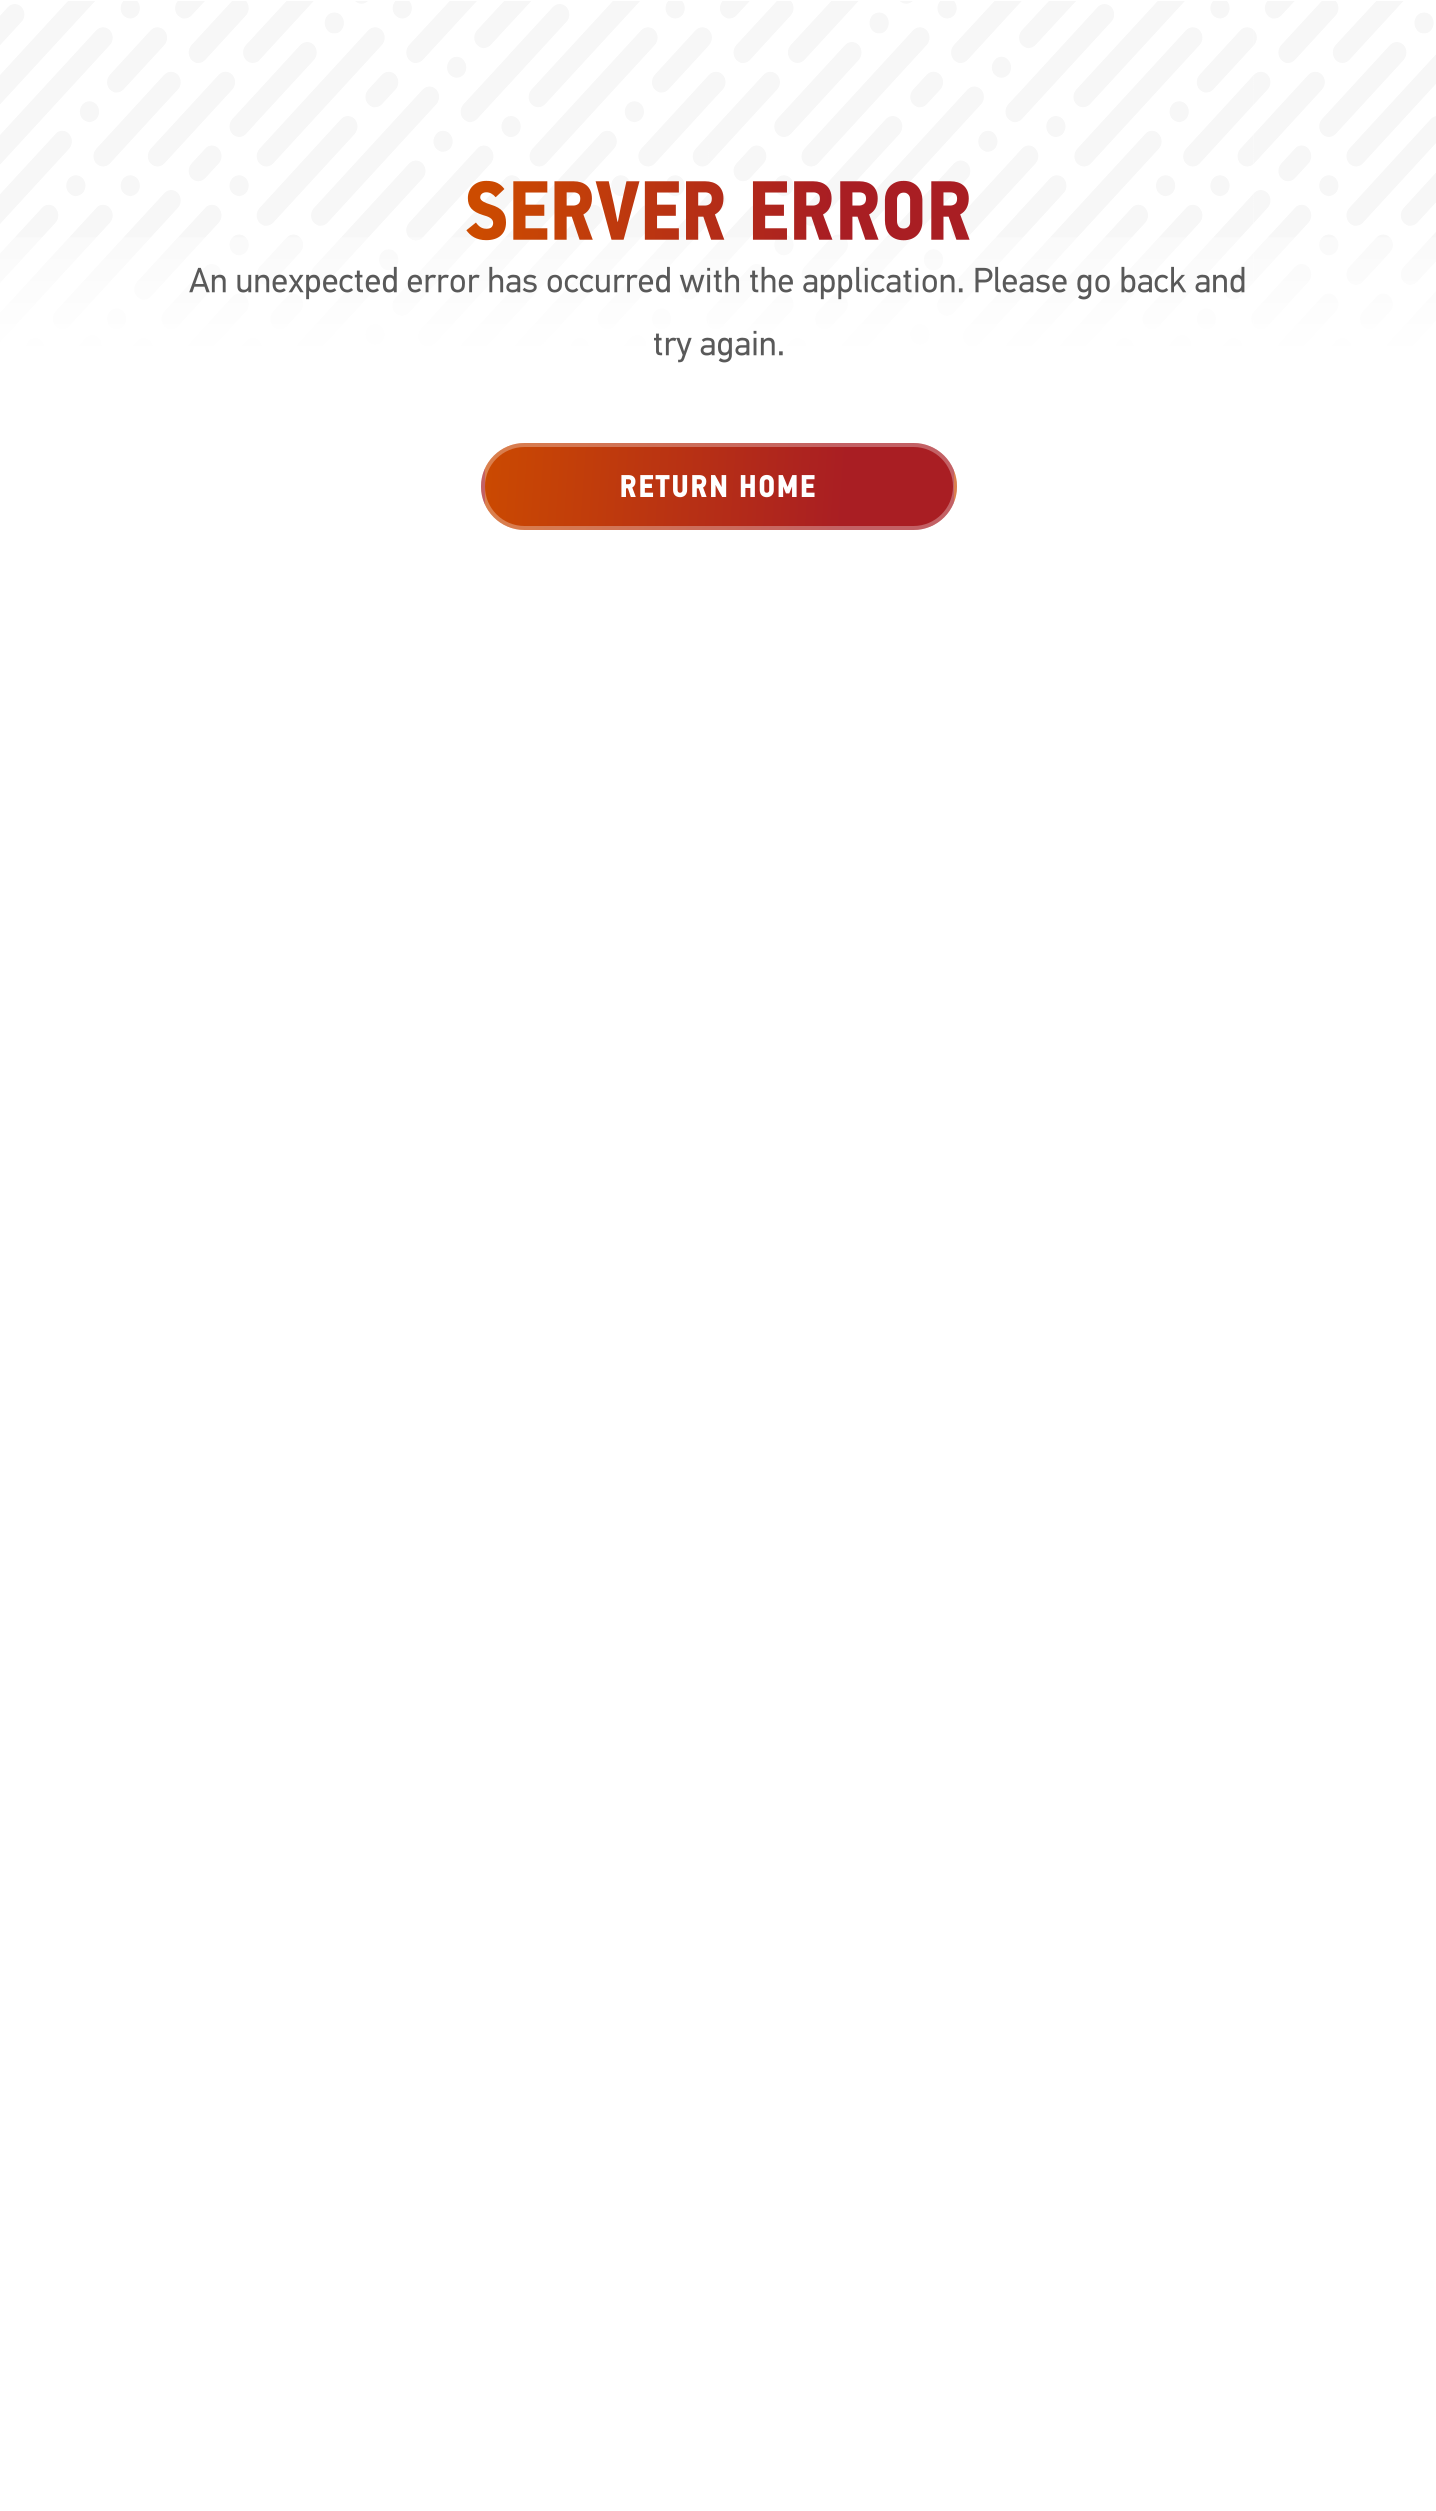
#include <cairo.h>
#include <math.h>
#include <stddef.h>


static void set_color(cairo_t *cr, unsigned color) {
    cairo_set_source_rgb(cr, (color >> 16) / 255.0, (color >> 8 & 255) / 255.0, (color & 255) / 255.0);
}

static void rounded_rect(cairo_t *cr, double x, double y, double w, double h, double r) {
    cairo_new_sub_path(cr);
    cairo_arc(cr, x + w - r, y + h - r, r, 0, M_PI / 2);
    cairo_arc(cr, x + r, y + h - r, r, M_PI / 2, M_PI);
    cairo_arc(cr, x + r, y + r, r, M_PI, 1.5 * M_PI);
    cairo_arc(cr, x + w - r, y + r, r, 1.5 * M_PI, 2 * M_PI);
    cairo_close_path(cr);
}

static void draw_image(cairo_t *cr, const char *path, double x, double y, double w, double h) {
    cairo_surface_t *image = cairo_image_surface_create_from_png(path);
    cairo_save(cr);
    cairo_set_source_surface(cr, image, x, y);
    cairo_rectangle(cr, x, y, w, h);
    cairo_fill(cr);
    cairo_restore(cr);
    cairo_surface_destroy(image);
}

int main(void) {
    cairo_surface_t *surface = cairo_image_surface_create(CAIRO_FORMAT_RGB24, 1436, 2511);
    cairo_t *cr = cairo_create(surface);
    cairo_font_options_t *options = cairo_font_options_create();
    cairo_font_options_set_hint_metrics(options, CAIRO_HINT_METRICS_OFF);
    cairo_font_options_set_hint_style(options, CAIRO_HINT_STYLE_NONE);
    cairo_set_font_options(cr, options);
    cairo_set_miter_limit(cr, 4);
    cairo_pattern_t *gradient;
    set_color(cr, 0xFFFFFF);
    cairo_paint(cr);
    draw_image(cr, "assets/img1.png", 0, 1, 1436, 355);
    gradient = cairo_pattern_create_linear(718, 411, 718, 184);
    cairo_pattern_add_color_stop_rgba(gradient, 0.24, 1, 1, 1, 1);
    cairo_pattern_add_color_stop_rgba(gradient, 1, 1, 1, 1, 0);
    cairo_set_source(cr, gradient);
    cairo_pattern_destroy(gradient);
    cairo_rectangle(cr, 0, 237, 1436, 119);
    cairo_fill(cr);
    draw_image(cr, "assets/img2.png", 466, 180, 504, 61);
    draw_image(cr, "assets/img3.png", 189, 266, 1056, 34);
    draw_image(cr, "assets/img4.png", 654, 330, 129, 33);
    cairo_save(cr);
    rounded_rect(cr, 481, 443, 476, 87, 43.5);
    cairo_clip(cr);
    gradient = cairo_pattern_create_linear(472, 388, 955, 423);
    cairo_pattern_add_color_stop_rgba(gradient, 0, 0.8, 0.294, 0, 1);
    cairo_pattern_add_color_stop_rgba(gradient, 0.77, 0.663, 0.118, 0.137, 1);
    cairo_set_source(cr, gradient);
    cairo_pattern_destroy(gradient);
    cairo_rectangle(cr, 509, 443, 420, 3);
    cairo_fill(cr);
    gradient = cairo_pattern_create_linear(3.3, 469, 486, 504);
    cairo_pattern_add_color_stop_rgba(gradient, 0, 0.8, 0.294, 0, 1);
    cairo_pattern_add_color_stop_rgba(gradient, 0.77, 0.663, 0.118, 0.137, 1);
    cairo_set_source(cr, gradient);
    cairo_pattern_destroy(gradient);
    cairo_rectangle(cr, 481, 468, 4, 37);
    cairo_fill(cr);
    gradient = cairo_pattern_create_linear(472, 469, 955, 504);
    cairo_pattern_add_color_stop_rgba(gradient, 0, 0.8, 0.294, 0, 1);
    cairo_pattern_add_color_stop_rgba(gradient, 0.77, 0.663, 0.118, 0.137, 1);
    cairo_set_source(cr, gradient);
    cairo_pattern_destroy(gradient);
    cairo_rectangle(cr, 485, 446, 469, 81);
    cairo_fill(cr);
    gradient = cairo_pattern_create_linear(941, 469, 1424, 504);
    cairo_pattern_add_color_stop_rgba(gradient, 0, 0.8, 0.294, 0, 1);
    cairo_pattern_add_color_stop_rgba(gradient, 0.77, 0.663, 0.118, 0.137, 1);
    cairo_set_source(cr, gradient);
    cairo_pattern_destroy(gradient);
    cairo_rectangle(cr, 954, 471, 3, 31);
    cairo_fill(cr);
    gradient = cairo_pattern_create_linear(472, 549, 955, 584);
    cairo_pattern_add_color_stop_rgba(gradient, 0, 0.8, 0.294, 0, 1);
    cairo_pattern_add_color_stop_rgba(gradient, 0.77, 0.663, 0.118, 0.137, 1);
    cairo_set_source(cr, gradient);
    cairo_pattern_destroy(gradient);
    cairo_rectangle(cr, 509, 527, 420, 3);
    cairo_fill(cr);
    cairo_restore(cr);
    rounded_rect(cr, 483, 445, 472, 83, 41.5);
    cairo_set_source_rgba(cr, 1, 1, 1, 0.3);
    cairo_set_line_width(cr, 4);
    cairo_stroke(cr);
    draw_image(cr, "assets/img5.png", 621, 474, 194, 24);
    cairo_surface_write_to_png(surface, "output.png");
    cairo_font_options_destroy(options);
    cairo_destroy(cr);
    cairo_surface_destroy(surface);
    return 0;
}
